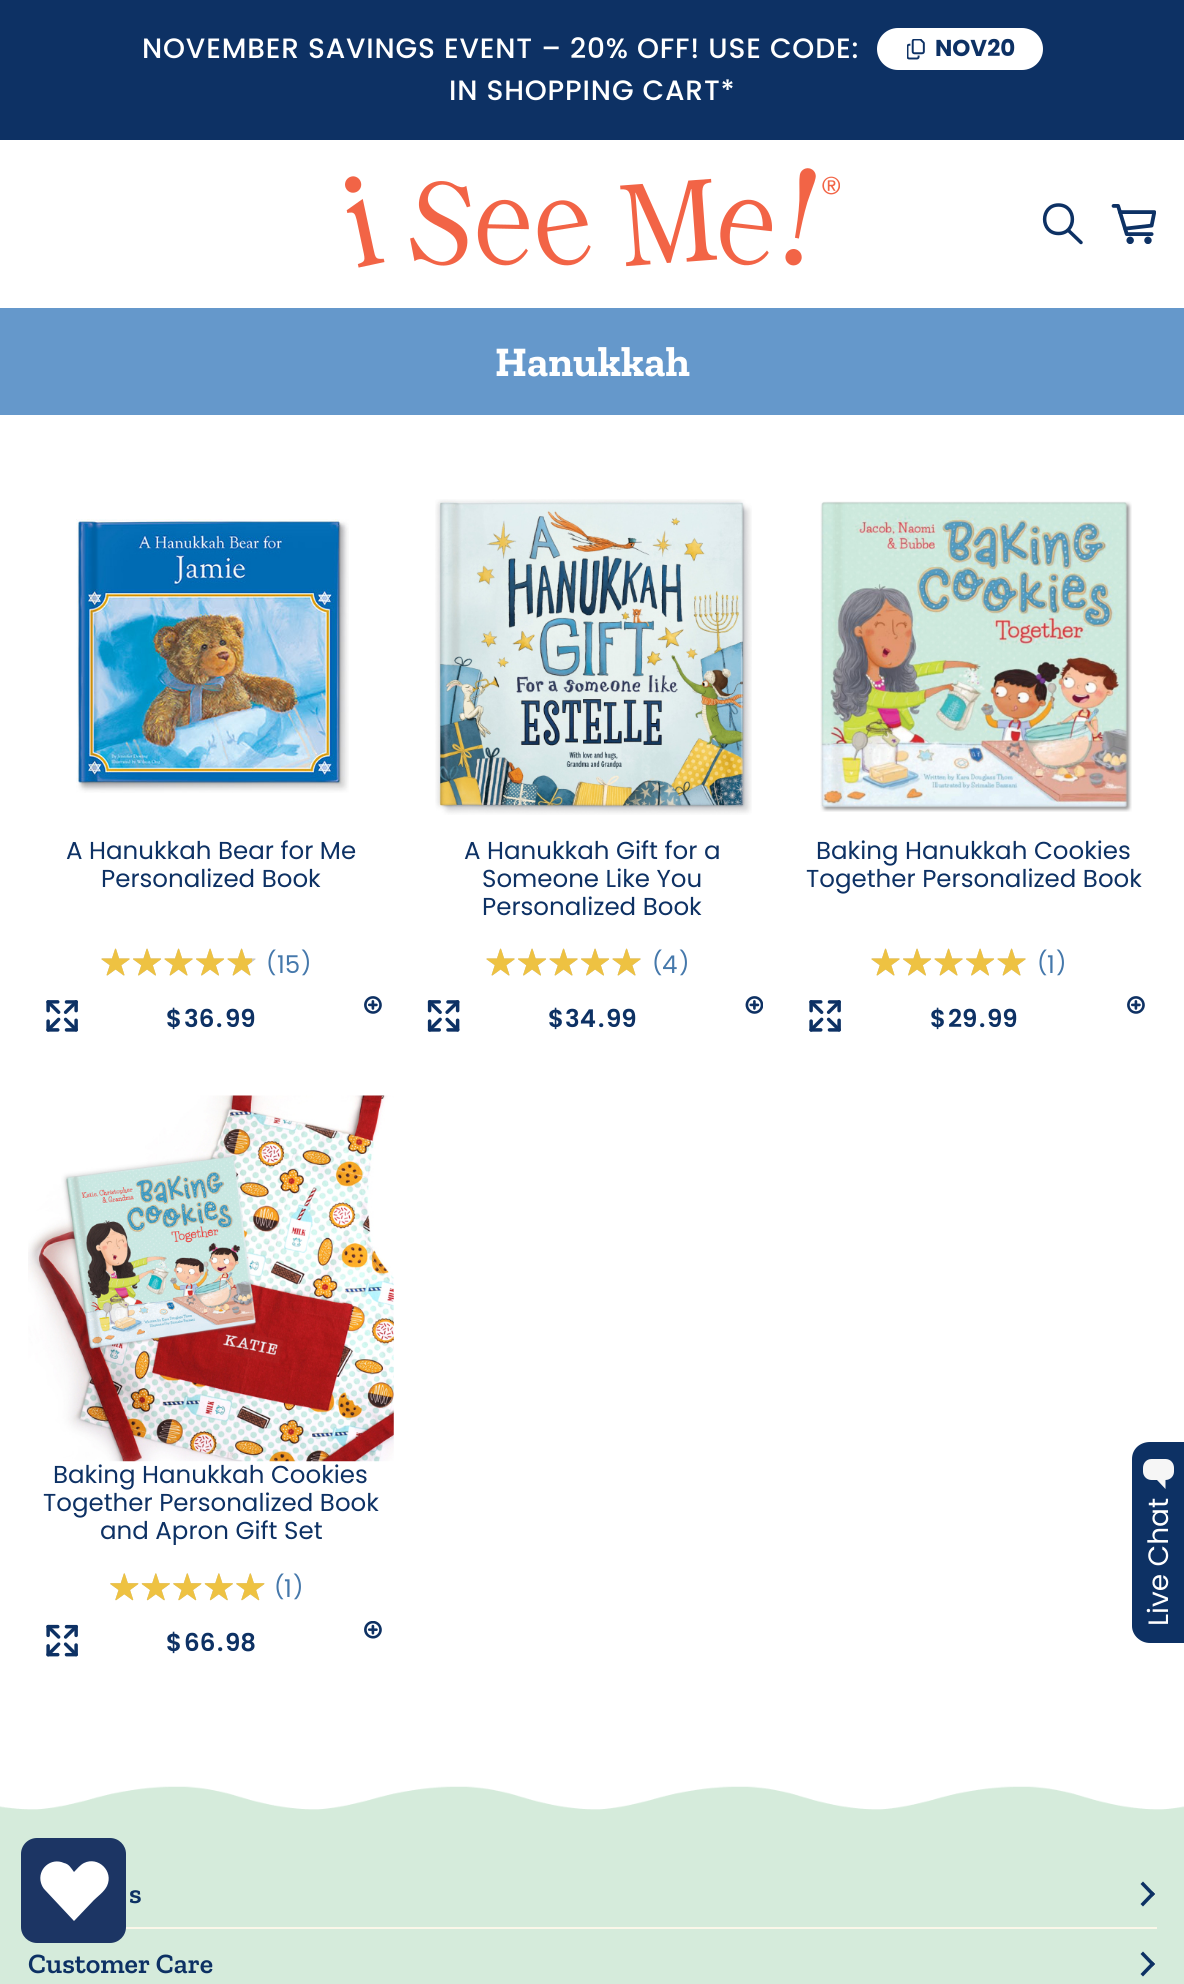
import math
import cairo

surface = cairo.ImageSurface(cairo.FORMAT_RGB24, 1184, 1984)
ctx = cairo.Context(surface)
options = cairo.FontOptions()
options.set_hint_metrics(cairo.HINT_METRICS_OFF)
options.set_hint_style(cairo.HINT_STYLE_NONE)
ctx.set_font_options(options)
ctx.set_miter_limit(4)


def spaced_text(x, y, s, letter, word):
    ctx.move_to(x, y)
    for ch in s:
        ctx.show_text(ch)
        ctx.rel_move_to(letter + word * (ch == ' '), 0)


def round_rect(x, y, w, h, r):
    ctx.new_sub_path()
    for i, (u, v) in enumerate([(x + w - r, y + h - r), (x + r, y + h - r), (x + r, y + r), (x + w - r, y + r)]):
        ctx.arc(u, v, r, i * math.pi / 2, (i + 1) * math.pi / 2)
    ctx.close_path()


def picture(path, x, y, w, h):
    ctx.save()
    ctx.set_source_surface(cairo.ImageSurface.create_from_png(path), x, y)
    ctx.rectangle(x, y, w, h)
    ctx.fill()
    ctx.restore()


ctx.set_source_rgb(1, 1, 1)
ctx.paint()
ctx.set_source_rgb(0.051, 0.192, 0.392)
ctx.rectangle(0, 0, 1184, 140)
ctx.fill()
ctx.select_font_face("Poppins Medium")
ctx.set_font_size(28)
ctx.set_source_rgb(1, 1, 1)
spaced_text(142, 58, "NOVEMBER SAVINGS EVENT – 20% OFF! USE CODE:", 0.85, 0)
round_rect(877, 28, 166, 42, 21)
ctx.fill()
picture("img1.png", 907, 39, 18, 21)
ctx.select_font_face("Poppins", cairo.FONT_SLANT_NORMAL, cairo.FONT_WEIGHT_BOLD)
ctx.set_font_size(23)
ctx.set_source_rgb(0.051, 0.192, 0.392)
ctx.move_to(935, 56)
ctx.show_text("NOV20")
ctx.select_font_face("Poppins Medium")
ctx.set_font_size(28)
ctx.set_source_rgb(1, 1, 1)
spaced_text(449, 100, "IN SHOPPING CART*", 0.85, 0)
picture("img2.png", 345, 168, 495, 100)
ctx.new_path()
ctx.move_to(1058.5, 233.5)
ctx.curve_to(1077, 233.5, 1077, 205, 1058.5, 205)
ctx.curve_to(1040, 205, 1040, 233.5, 1058.5, 233.5)
ctx.close_path()
ctx.set_source_rgb(0.051, 0.192, 0.392)
ctx.set_line_width(3.5)
ctx.stroke()
ctx.new_path()
ctx.move_to(1068.5, 230.5)
ctx.line_to(1081, 242.5)
ctx.set_line_cap(cairo.LINE_CAP_ROUND)
ctx.stroke()
picture("img3.png", 1111, 204, 45, 40)
ctx.set_source_rgb(0.396, 0.596, 0.796)
ctx.rectangle(0, 308, 1184, 107)
ctx.fill()
ctx.select_font_face("Zilla Slab", cairo.FONT_SLANT_NORMAL, cairo.FONT_WEIGHT_BOLD)
ctx.set_font_size(42)
ctx.set_source_rgb(1, 1, 1)
ctx.move_to(495, 376)
ctx.show_text("Hanukkah")
picture("img4.png", 76, 519, 273, 274)
ctx.select_font_face("Poppins")
ctx.set_font_size(24.5)
ctx.set_source_rgb(0.051, 0.192, 0.392)
ctx.move_to(66, 859)
ctx.show_text("A Hanukkah Bear for Me")
ctx.move_to(101, 887)
ctx.show_text("Personalized Book")
picture("img5.png", 101, 948, 155, 28)
picture("img6.png", 101, 948, 151, 28)
ctx.set_font_size(23)
ctx.set_source_rgb(0.271, 0.471, 0.671)
ctx.move_to(266, 971)
ctx.show_text("(")
ctx.set_font_size(24.5)
ctx.move_to(277, 973)
ctx.show_text("15")
ctx.set_font_size(23)
ctx.move_to(301, 971)
ctx.show_text(")")
picture("img7.png", 46, 1000, 32, 32)
picture("img8.png", 364, 996, 18, 18)
ctx.select_font_face("Poppins SemiBold")
ctx.set_font_size(24.5)
ctx.set_source_rgb(0.051, 0.192, 0.392)
ctx.move_to(166, 1027)
ctx.show_text("$")
ctx.move_to(184, 1027)
ctx.show_text("36")
ctx.move_to(216, 1027)
ctx.show_text(".")
ctx.move_to(225, 1027)
ctx.show_text("99")
picture("img9.png", 435, 499, 317, 316)
ctx.select_font_face("Poppins")
ctx.move_to(464, 859)
ctx.show_text("A Hanukkah Gift for a")
ctx.move_to(482, 887)
ctx.show_text("Someone Like You")
ctx.move_to(482, 915)
ctx.show_text("Personalized Book")
picture("img5.png", 486, 948, 155, 28)
picture("img10.png", 486, 948, 155, 28)
ctx.set_font_size(23)
ctx.set_source_rgb(0.271, 0.471, 0.671)
ctx.move_to(652, 971)
ctx.show_text("(")
ctx.set_font_size(24.5)
ctx.move_to(662, 973)
ctx.show_text("4")
ctx.set_font_size(23)
ctx.move_to(679, 971)
ctx.show_text(")")
picture("img11.png", 427, 1000, 33, 32)
picture("img12.png", 745, 996, 18, 18)
ctx.select_font_face("Poppins SemiBold")
ctx.set_font_size(24.5)
ctx.set_source_rgb(0.051, 0.192, 0.392)
ctx.move_to(548, 1027)
ctx.show_text("$")
ctx.move_to(565, 1027)
ctx.show_text("34")
ctx.move_to(598, 1027)
ctx.show_text(".")
ctx.move_to(606, 1027)
ctx.show_text("99")
picture("img13.png", 820, 501, 312, 311)
ctx.select_font_face("Poppins")
ctx.move_to(816, 859)
ctx.show_text("Baking Hanukkah Cookies")
ctx.move_to(806, 887)
ctx.show_text("Together Personalized Book")
picture("img5.png", 871, 948, 155, 28)
picture("img10.png", 871, 948, 155, 28)
ctx.set_font_size(23)
ctx.set_source_rgb(0.271, 0.471, 0.671)
ctx.move_to(1037, 971)
ctx.show_text("(")
ctx.set_font_size(24.5)
ctx.move_to(1047, 973)
ctx.show_text("1")
ctx.set_font_size(23)
ctx.move_to(1056, 971)
ctx.show_text(")")
picture("img7.png", 809, 1000, 32, 32)
picture("img8.png", 1127, 996, 18, 18)
ctx.select_font_face("Poppins SemiBold")
ctx.set_font_size(24.5)
ctx.set_source_rgb(0.051, 0.192, 0.392)
ctx.move_to(930, 1027)
ctx.show_text("$")
ctx.move_to(948, 1027)
ctx.show_text("29")
ctx.move_to(979, 1027)
ctx.show_text(".")
ctx.move_to(987, 1027)
ctx.show_text("99")
picture("img14.png", 28, 1095, 366, 367)
ctx.select_font_face("Poppins")
ctx.move_to(53, 1483)
ctx.show_text("Baking Hanukkah Cookies")
ctx.move_to(43, 1511)
ctx.show_text("Together Personalized Book")
ctx.save()
ctx.rectangle(28, 1461, 366, 84)
ctx.clip()
ctx.move_to(100, 1539)
ctx.show_text("and Apron Gift Set")
ctx.restore()
picture("img15.png", 110, 1573, 155, 28)
picture("img16.png", 110, 1573, 155, 28)
ctx.set_font_size(23)
ctx.set_source_rgb(0.271, 0.471, 0.671)
ctx.move_to(274, 1595)
ctx.show_text("(")
ctx.set_font_size(24.5)
ctx.move_to(284, 1597)
ctx.show_text("1")
ctx.set_font_size(23)
ctx.move_to(293, 1595)
ctx.show_text(")")
picture("img17.png", 46, 1624, 32, 33)
picture("img18.png", 364, 1621, 18, 18)
ctx.select_font_face("Poppins SemiBold")
ctx.set_font_size(24.5)
ctx.set_source_rgb(0.051, 0.192, 0.392)
ctx.move_to(166, 1651)
ctx.show_text("$")
ctx.move_to(184, 1651)
ctx.show_text("66")
ctx.move_to(217, 1651)
ctx.show_text(".")
ctx.move_to(225, 1651)
ctx.show_text("98")
picture("img19.png", 0, 1786, 1184, 198)
ctx.set_source_rgb(0.984, 0.965, 0.914)
ctx.rectangle(125, 1927, 1032, 2)
ctx.fill()
ctx.select_font_face("Zilla Slab SemiBold")
ctx.set_font_size(28)
ctx.set_source_rgb(0.051, 0.192, 0.392)
ctx.move_to(129, 1903)
ctx.show_text("s")
ctx.new_path()
ctx.move_to(1140.5, 1884)
ctx.line_to(1143, 1881.5)
ctx.line_to(1155, 1894)
ctx.line_to(1152.5, 1896.5)
ctx.close_path()
ctx.fill()
ctx.new_path()
ctx.move_to(1140.5, 1904)
ctx.line_to(1152.5, 1891.5)
ctx.line_to(1155, 1894)
ctx.line_to(1143, 1906.5)
ctx.close_path()
ctx.fill()
ctx.move_to(28, 1973)
ctx.show_text("Customer Care")
ctx.new_path()
ctx.move_to(1140.5, 1954)
ctx.line_to(1143, 1951.5)
ctx.line_to(1155, 1964)
ctx.line_to(1152.5, 1966.5)
ctx.close_path()
ctx.fill()
ctx.new_path()
ctx.move_to(1140.5, 1974)
ctx.line_to(1152.5, 1961.5)
ctx.line_to(1155, 1964)
ctx.line_to(1143, 1976.5)
ctx.close_path()
ctx.fill()
ctx.new_path()
ctx.move_to(1132, 1626)
ctx.line_to(1132, 1459)
ctx.curve_to(1132, 1449, 1140, 1442, 1150, 1442)
ctx.line_to(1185, 1442)
ctx.line_to(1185, 1643)
ctx.line_to(1150, 1643)
ctx.curve_to(1140, 1643, 1132, 1635, 1132, 1626)
ctx.close_path()
ctx.fill()
ctx.set_source_rgb(0.961, 0.961, 0.961)
ctx.new_path()
ctx.move_to(1143, 1471.5)
ctx.line_to(1143, 1468)
ctx.curve_to(1143, 1463, 1146.5, 1459, 1151.5, 1459)
ctx.line_to(1165.5, 1459)
ctx.curve_to(1170.5, 1459, 1174, 1463, 1174, 1468)
ctx.line_to(1174, 1471.5)
ctx.curve_to(1174, 1476, 1170.5, 1480, 1165.5, 1480)
ctx.line_to(1151.5, 1480)
ctx.curve_to(1146.5, 1480, 1143, 1476, 1143, 1471.5)
ctx.close_path()
ctx.move_to(1165.5, 1480)
ctx.line_to(1165.5, 1489)
ctx.line_to(1157, 1480)
ctx.close_path()
ctx.fill()
ctx.select_font_face("Poppins")
ctx.set_source_rgb(1, 1, 1)
ctx.save()
ctx.translate(1168, 1626)
ctx.rotate(-90 * math.pi / 180)
ctx.move_to(0, 0)
ctx.show_text("Live Chat")
ctx.restore()
ctx.set_source_rgb(0.11, 0.208, 0.392)
round_rect(21, 1838, 105, 105, 16)
ctx.fill()
ctx.set_source_rgb(1, 1, 1)
ctx.new_path()
ctx.move_to(41, 1883)
ctx.curve_to(42, 1886, 43, 1888, 45, 1890)
ctx.line_to(74, 1921)
ctx.line_to(94, 1900)
ctx.curve_to(98, 1896, 104, 1892, 107, 1886)
ctx.curve_to(114, 1871, 98, 1856, 84, 1863)
ctx.curve_to(80, 1865, 77, 1869, 74, 1872)
ctx.curve_to(71, 1868, 69, 1864, 64, 1863)
ctx.curve_to(51, 1857, 37, 1869, 41, 1883)
ctx.close_path()
ctx.fill()
surface.write_to_png("page.png")
